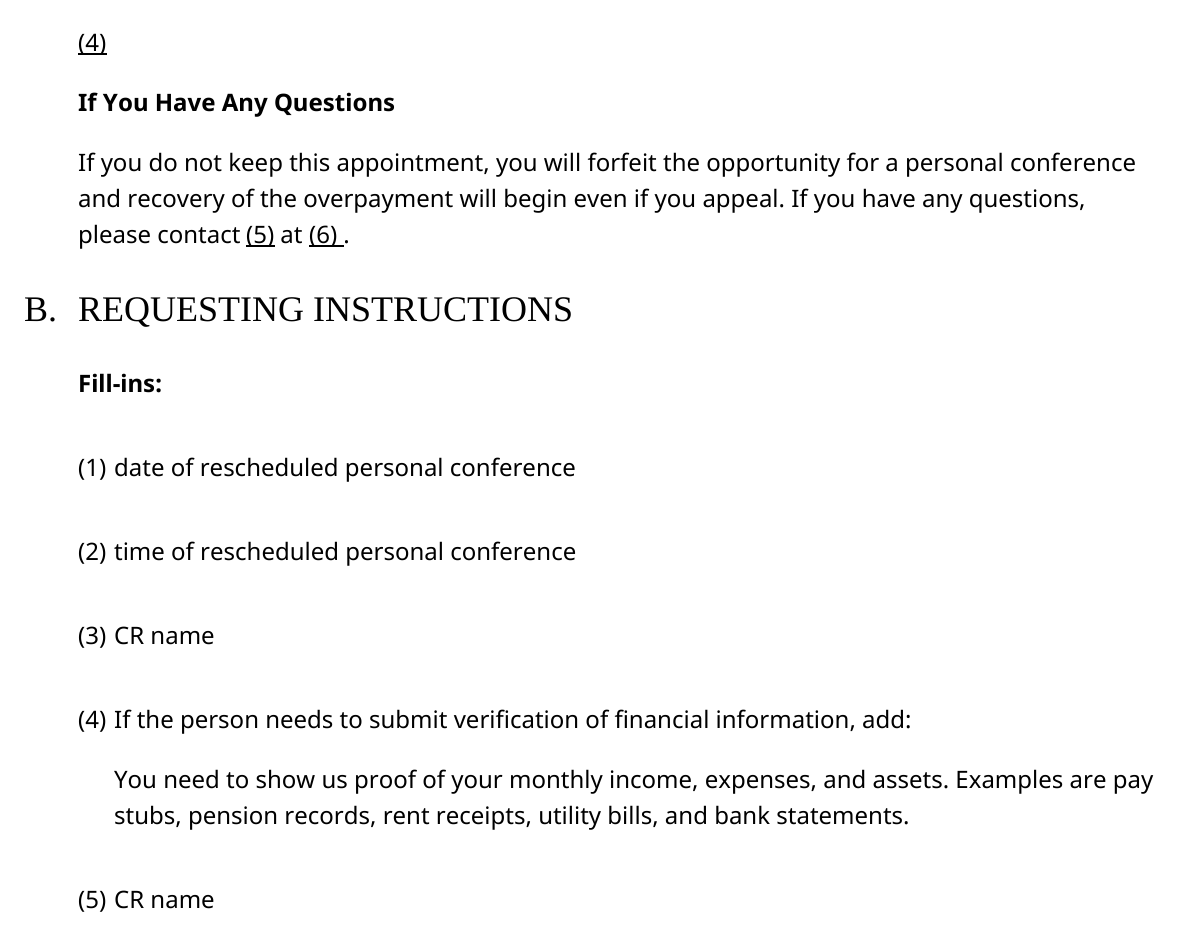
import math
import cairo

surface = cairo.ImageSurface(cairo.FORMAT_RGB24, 1184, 929)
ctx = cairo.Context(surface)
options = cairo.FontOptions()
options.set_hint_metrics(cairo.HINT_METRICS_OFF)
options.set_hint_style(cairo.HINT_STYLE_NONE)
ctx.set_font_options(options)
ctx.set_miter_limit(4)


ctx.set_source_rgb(1, 1, 1)
ctx.paint()
ctx.set_source_rgb(0, 0, 0)
ctx.rectangle(78, 53, 29, 2)
ctx.fill()
ctx.select_font_face("Noto Sans")
ctx.set_font_size(24)
ctx.move_to(78, 51)
ctx.show_text("(4)")
ctx.select_font_face("Noto Sans", cairo.FONT_SLANT_NORMAL, cairo.FONT_WEIGHT_BOLD)
ctx.move_to(78, 111)
ctx.show_text("If You Have Any Questions")
ctx.select_font_face("Noto Sans")
ctx.move_to(78, 171)
ctx.show_text("If you do not keep this appointment, you will forfeit the opportunity for a personal conference")
ctx.move_to(78, 207)
ctx.show_text("and recovery of the overpayment will begin even if you appeal. If you have any questions,")
ctx.move_to(78, 243)
ctx.show_text("please contact")
ctx.rectangle(246, 245, 29, 2)
ctx.fill()
ctx.move_to(246, 243)
ctx.show_text("(5) at")
ctx.rectangle(309, 245, 35, 2)
ctx.fill()
ctx.move_to(309, 243)
ctx.show_text("(6) .")
ctx.select_font_face("Liberation Serif")
ctx.set_font_size(36)
ctx.move_to(24, 321)
ctx.show_text("B.")
ctx.move_to(78, 321)
ctx.show_text("REQUESTING INSTRUCTIONS")
ctx.select_font_face("Noto Sans", cairo.FONT_SLANT_NORMAL, cairo.FONT_WEIGHT_BOLD)
ctx.set_font_size(24)
ctx.move_to(78, 392)
ctx.show_text("Fill-ins:")
ctx.select_font_face("Noto Sans")
ctx.move_to(78, 476)
ctx.show_text("(1)")
ctx.move_to(114, 476)
ctx.show_text("date of rescheduled personal conference")
ctx.move_to(78, 560)
ctx.show_text("(2)")
ctx.move_to(114, 560)
ctx.show_text("time of rescheduled personal conference")
ctx.move_to(78, 644)
ctx.show_text("(3)")
ctx.move_to(114, 644)
ctx.show_text("CR name")
ctx.move_to(78, 728)
ctx.show_text("(4)")
ctx.move_to(114, 728)
ctx.show_text("If the person needs to submit verification of financial information, add:")
ctx.move_to(114, 788)
ctx.show_text("You need to show us proof of your monthly income, expenses, and assets. Examples are pay")
ctx.move_to(114, 824)
ctx.show_text("stubs, pension records, rent receipts, utility bills, and bank statements.")
ctx.move_to(78, 908)
ctx.show_text("(5)")
ctx.move_to(114, 908)
ctx.show_text("CR name")
surface.write_to_png("page.png")
